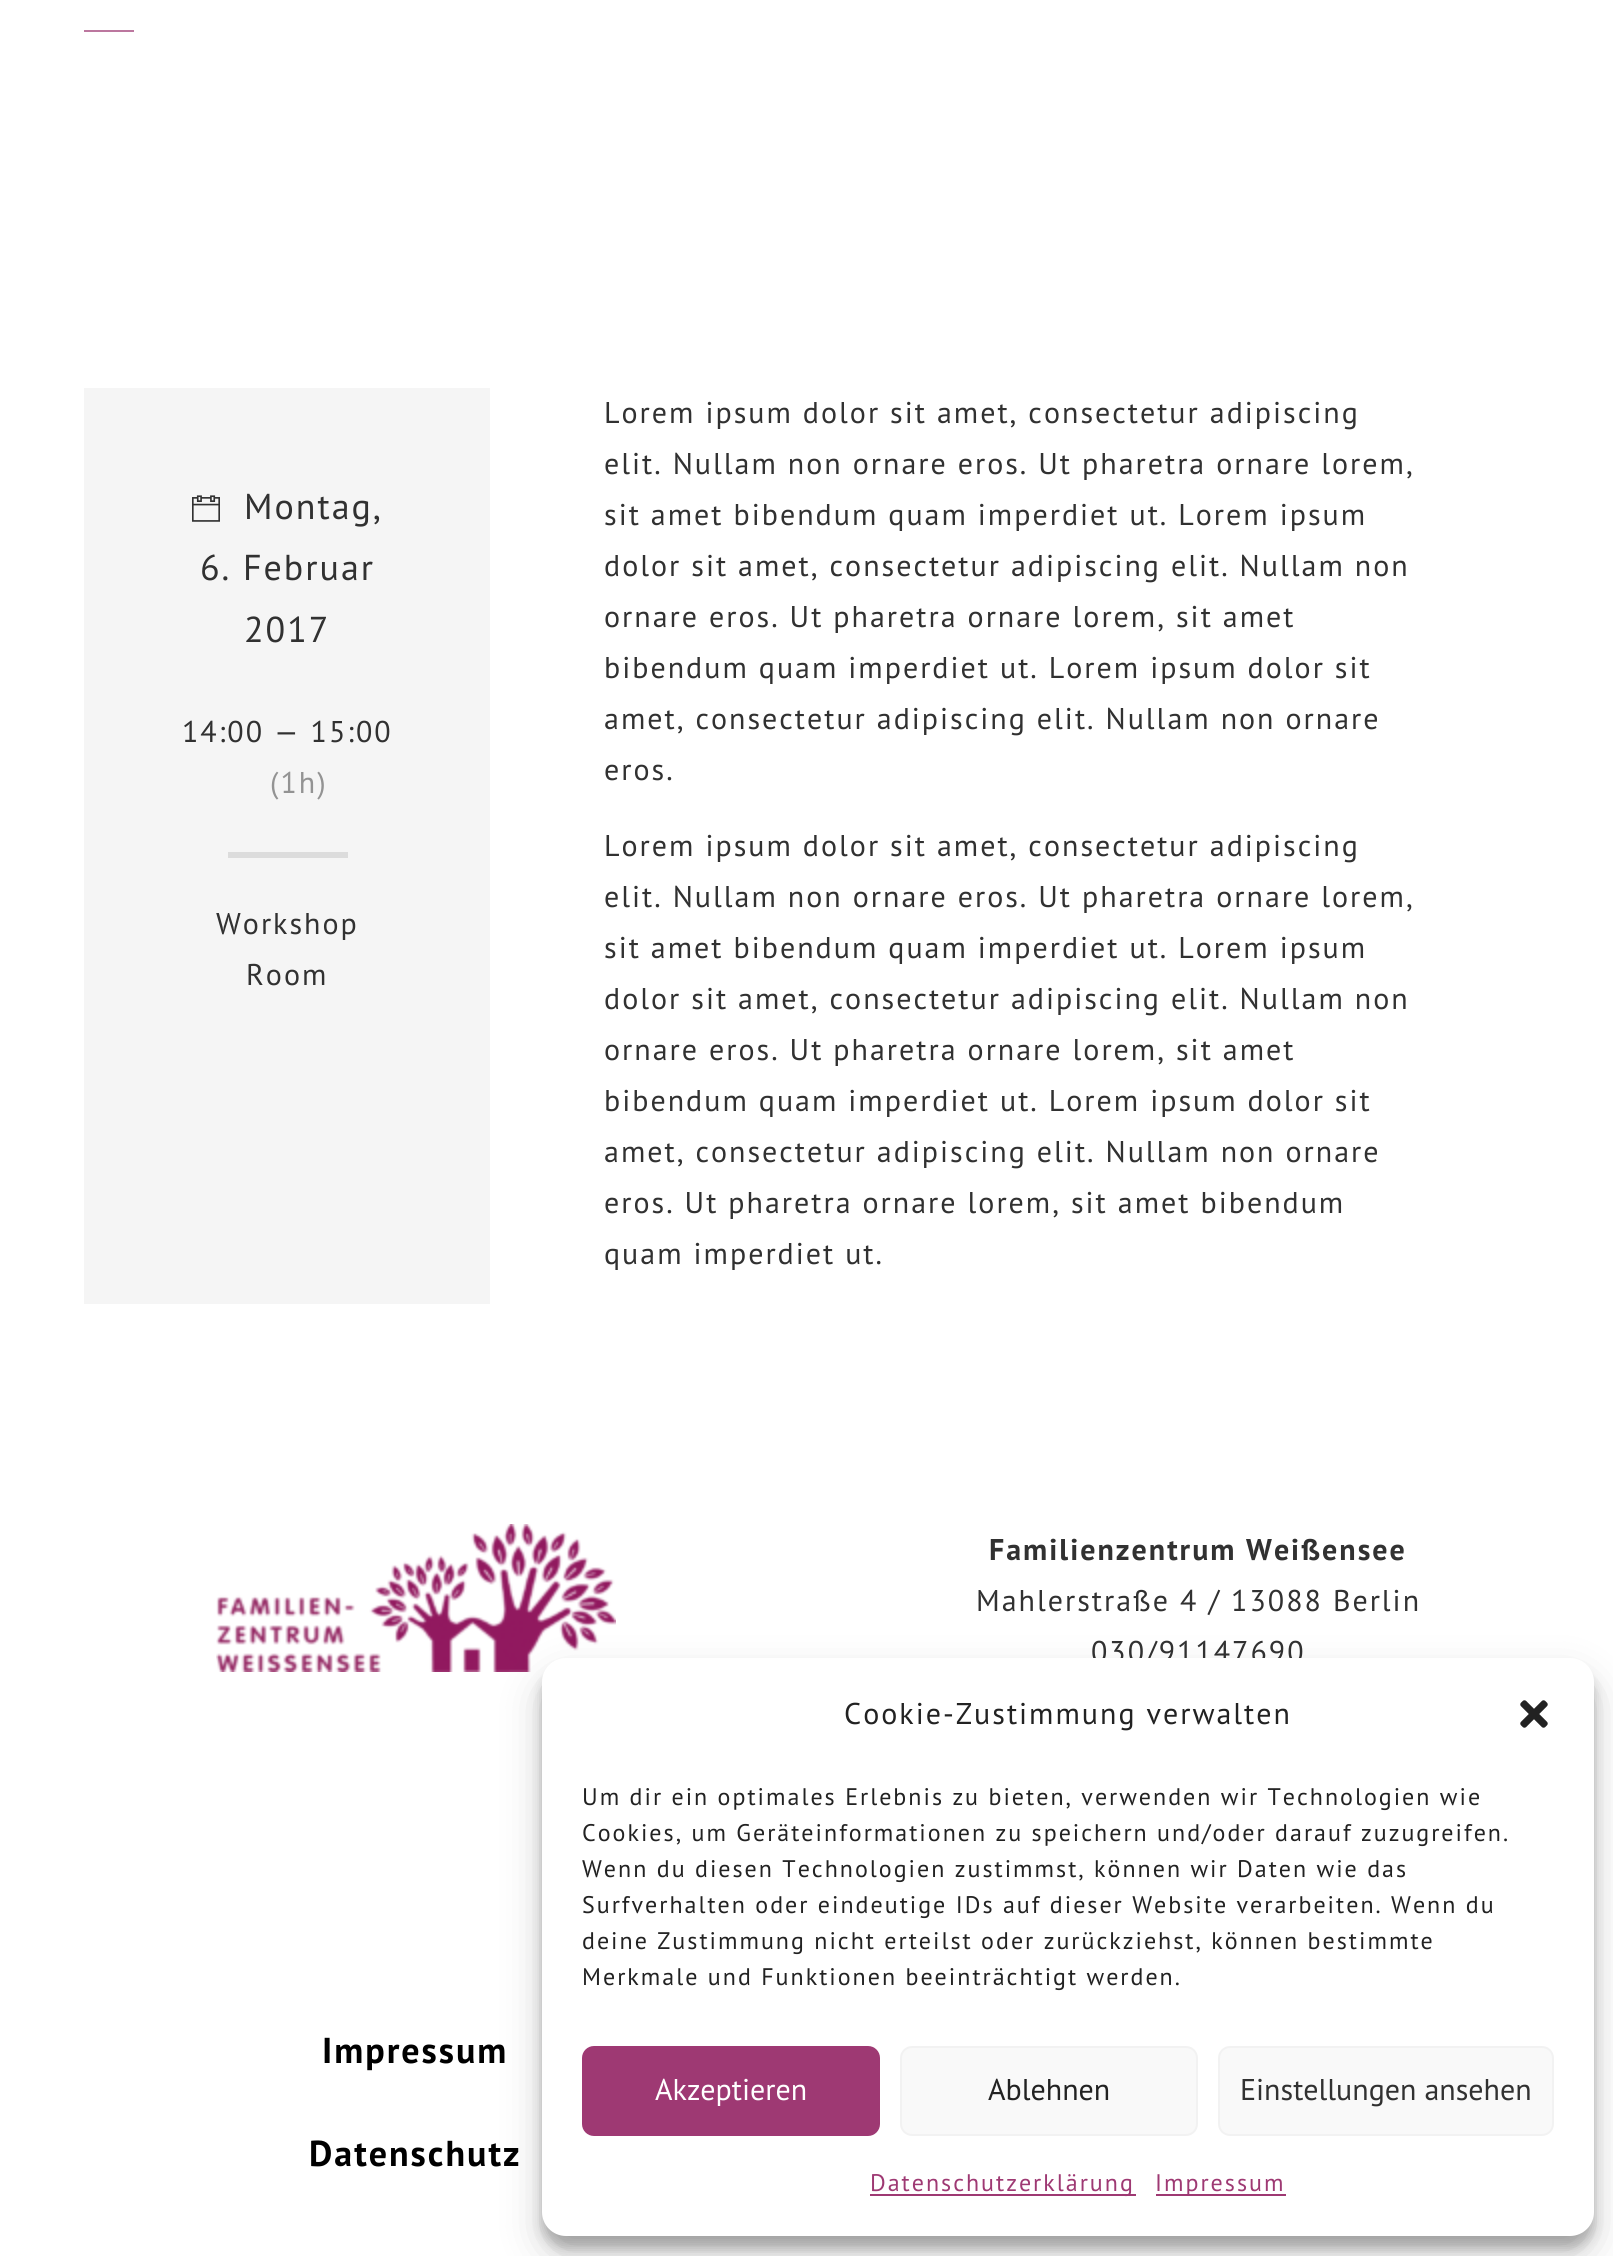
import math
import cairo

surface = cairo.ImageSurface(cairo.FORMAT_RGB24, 1613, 2256)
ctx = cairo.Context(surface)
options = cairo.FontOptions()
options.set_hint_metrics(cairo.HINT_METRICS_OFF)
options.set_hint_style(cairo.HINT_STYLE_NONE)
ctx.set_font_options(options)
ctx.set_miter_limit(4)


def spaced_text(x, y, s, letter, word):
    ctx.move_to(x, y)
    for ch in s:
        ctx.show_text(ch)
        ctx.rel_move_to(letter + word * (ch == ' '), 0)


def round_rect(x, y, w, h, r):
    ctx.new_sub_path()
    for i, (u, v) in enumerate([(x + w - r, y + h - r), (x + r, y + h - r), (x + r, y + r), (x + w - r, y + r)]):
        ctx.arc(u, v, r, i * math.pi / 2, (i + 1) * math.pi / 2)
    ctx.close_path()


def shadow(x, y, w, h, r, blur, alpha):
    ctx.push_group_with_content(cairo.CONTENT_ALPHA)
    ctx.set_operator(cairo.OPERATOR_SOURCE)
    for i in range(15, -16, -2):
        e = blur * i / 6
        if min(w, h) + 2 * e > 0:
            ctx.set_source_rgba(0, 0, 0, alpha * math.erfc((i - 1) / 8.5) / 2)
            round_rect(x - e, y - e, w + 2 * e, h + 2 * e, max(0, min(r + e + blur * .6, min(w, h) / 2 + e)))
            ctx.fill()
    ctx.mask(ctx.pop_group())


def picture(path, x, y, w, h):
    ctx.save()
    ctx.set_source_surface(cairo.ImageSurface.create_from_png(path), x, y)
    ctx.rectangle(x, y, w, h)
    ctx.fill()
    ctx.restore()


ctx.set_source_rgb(1, 1, 1)
ctx.paint()
ctx.set_source_rgb(0.737, 0.467, 0.624)
ctx.rectangle(84, 30, 50, 2)
ctx.fill()
picture("img1.png", 192, 495, 28, 27)
ctx.set_source_rgba(0.192, 0.192, 0.192, 0.05)
ctx.rectangle(84, 388, 406, 916)
ctx.fill()
ctx.select_font_face("PT Sans")
ctx.set_font_size(36)
ctx.set_source_rgb(0.192, 0.192, 0.192)
spaced_text(244, 519, "Montag,", 2, 0)
spaced_text(200, 580, "6. Februar", 2, 0)
spaced_text(244, 642, "2017", 2, 0)
ctx.set_font_size(30)
spaced_text(182, 742, "14:00 — 15:00", 2, 0)
ctx.set_source_rgb(0.576, 0.576, 0.576)
spaced_text(270, 793, "(1h)", 2, 0)
ctx.set_source_rgb(0.863, 0.863, 0.863)
ctx.rectangle(228, 852, 120, 6)
ctx.fill()
ctx.set_source_rgb(0.192, 0.192, 0.192)
spaced_text(216, 934, "Workshop", 2, 0)
spaced_text(246, 985, "Room", 2, 0)
spaced_text(604, 423, "Lorem ipsum dolor sit amet, consectetur adipiscing", 2, 0)
spaced_text(604, 474, "elit. Nullam non ornare eros. Ut pharetra ornare lorem,", 2, 0)
spaced_text(604, 525, "sit amet bibendum quam imperdiet ut. Lorem ipsum", 2, 0)
spaced_text(604, 576, "dolor sit amet, consectetur adipiscing elit. Nullam non", 2, 0)
spaced_text(604, 627, "ornare eros. Ut pharetra ornare lorem, sit amet", 2, 0)
spaced_text(604, 678, "bibendum quam imperdiet ut. Lorem ipsum dolor sit", 2, 0)
spaced_text(604, 729, "amet, consectetur adipiscing elit. Nullam non ornare", 2, 0)
spaced_text(604, 780, "eros.", 2, 0)
spaced_text(604, 856, "Lorem ipsum dolor sit amet, consectetur adipiscing", 2, 0)
spaced_text(604, 907, "elit. Nullam non ornare eros. Ut pharetra ornare lorem,", 2, 0)
spaced_text(604, 958, "sit amet bibendum quam imperdiet ut. Lorem ipsum", 2, 0)
spaced_text(604, 1009, "dolor sit amet, consectetur adipiscing elit. Nullam non", 2, 0)
spaced_text(604, 1060, "ornare eros. Ut pharetra ornare lorem, sit amet", 2, 0)
spaced_text(604, 1111, "bibendum quam imperdiet ut. Lorem ipsum dolor sit", 2, 0)
spaced_text(604, 1162, "amet, consectetur adipiscing elit. Nullam non ornare", 2, 0)
spaced_text(604, 1213, "eros. Ut pharetra ornare lorem, sit amet bibendum", 2, 0)
spaced_text(604, 1264, "quam imperdiet ut.", 2, 0)
picture("img2.png", 216, 1524, 400, 148)
ctx.select_font_face("PT Sans", cairo.FONT_SLANT_NORMAL, cairo.FONT_WEIGHT_BOLD)
spaced_text(989, 1560, "Familienzentrum Weißensee", 2, 0)
ctx.select_font_face("PT Sans")
spaced_text(976, 1611, "Mahlerstraße 4 / 13088 Berlin", 2, 0)
spaced_text(1091, 1662, "030/91147690", 2, 0)
ctx.select_font_face("PT Sans", cairo.FONT_SLANT_NORMAL, cairo.FONT_WEIGHT_BOLD)
ctx.set_font_size(36)
ctx.set_source_rgb(0, 0, 0)
spaced_text(322, 2063, "Impressum", 2, 0)
spaced_text(309, 2166, "Datenschutz", 2, 0)
ctx.set_source_rgb(0, 0, 0)
shadow(542, 1670, 1052, 578, 24, 6, 0.23)
shadow(542, 1678, 1052, 578, 24, 20, 0.19)
ctx.set_source_rgb(1, 1, 1)
round_rect(542, 1658, 1052, 578, 24)
ctx.fill()
ctx.select_font_face("PT Sans")
ctx.set_font_size(30)
ctx.set_source_rgb(0.133, 0.133, 0.133)
spaced_text(844, 1724, "Cookie-Zustimmung verwalten", 2, 0)
picture("img3.png", 1520, 1700, 28, 28)
ctx.set_font_size(24)
spaced_text(582, 1805, "Um dir ein optimales Erlebnis zu bieten, verwenden wir Technologien wie", 2, 0)
spaced_text(582, 1841, "Cookies, um Geräteinformationen zu speichern und/oder darauf zuzugreifen.", 2, 0)
spaced_text(582, 1877, "Wenn du diesen Technologien zustimmst, können wir Daten wie das", 2, 0)
spaced_text(582, 1913, "Surfverhalten oder eindeutige IDs auf dieser Website verarbeiten. Wenn du", 2, 0)
spaced_text(582, 1949, "deine Zustimmung nicht erteilst oder zurückziehst, können bestimmte", 2, 0)
spaced_text(582, 1985, "Merkmale und Funktionen beeinträchtigt werden.", 2, 0)
ctx.set_source_rgb(0.62, 0.224, 0.451)
round_rect(583, 2047, 296, 88, 11)
ctx.fill_preserve()
ctx.stroke()
ctx.set_font_size(30)
ctx.set_source_rgb(1, 1, 1)
ctx.move_to(655, 2100)
ctx.show_text("Akzeptieren")
ctx.set_source_rgb(0.976, 0.976, 0.976)
round_rect(901, 2047, 296, 88, 11)
ctx.fill_preserve()
ctx.set_source_rgb(0.949, 0.949, 0.949)
ctx.stroke()
ctx.set_source_rgb(0.133, 0.133, 0.133)
ctx.move_to(988, 2100)
ctx.show_text("Ablehnen")
ctx.set_source_rgb(0.976, 0.976, 0.976)
round_rect(1219, 2047, 334, 88, 11)
ctx.fill_preserve()
ctx.set_source_rgb(0.949, 0.949, 0.949)
ctx.stroke()
ctx.set_source_rgb(0.192, 0.192, 0.192)
ctx.move_to(1240, 2100)
ctx.show_text("Einstellungen ansehen")
ctx.set_source_rgb(0.62, 0.224, 0.451)
ctx.rectangle(870, 2194, 266, 2)
ctx.fill()
ctx.set_font_size(24)
spaced_text(870, 2191, "Datenschutzerklärung", 2, 0)
ctx.rectangle(1156, 2194, 130, 2)
ctx.fill()
spaced_text(1155, 2191, "Impressum", 2, 0)
surface.write_to_png("page.png")
